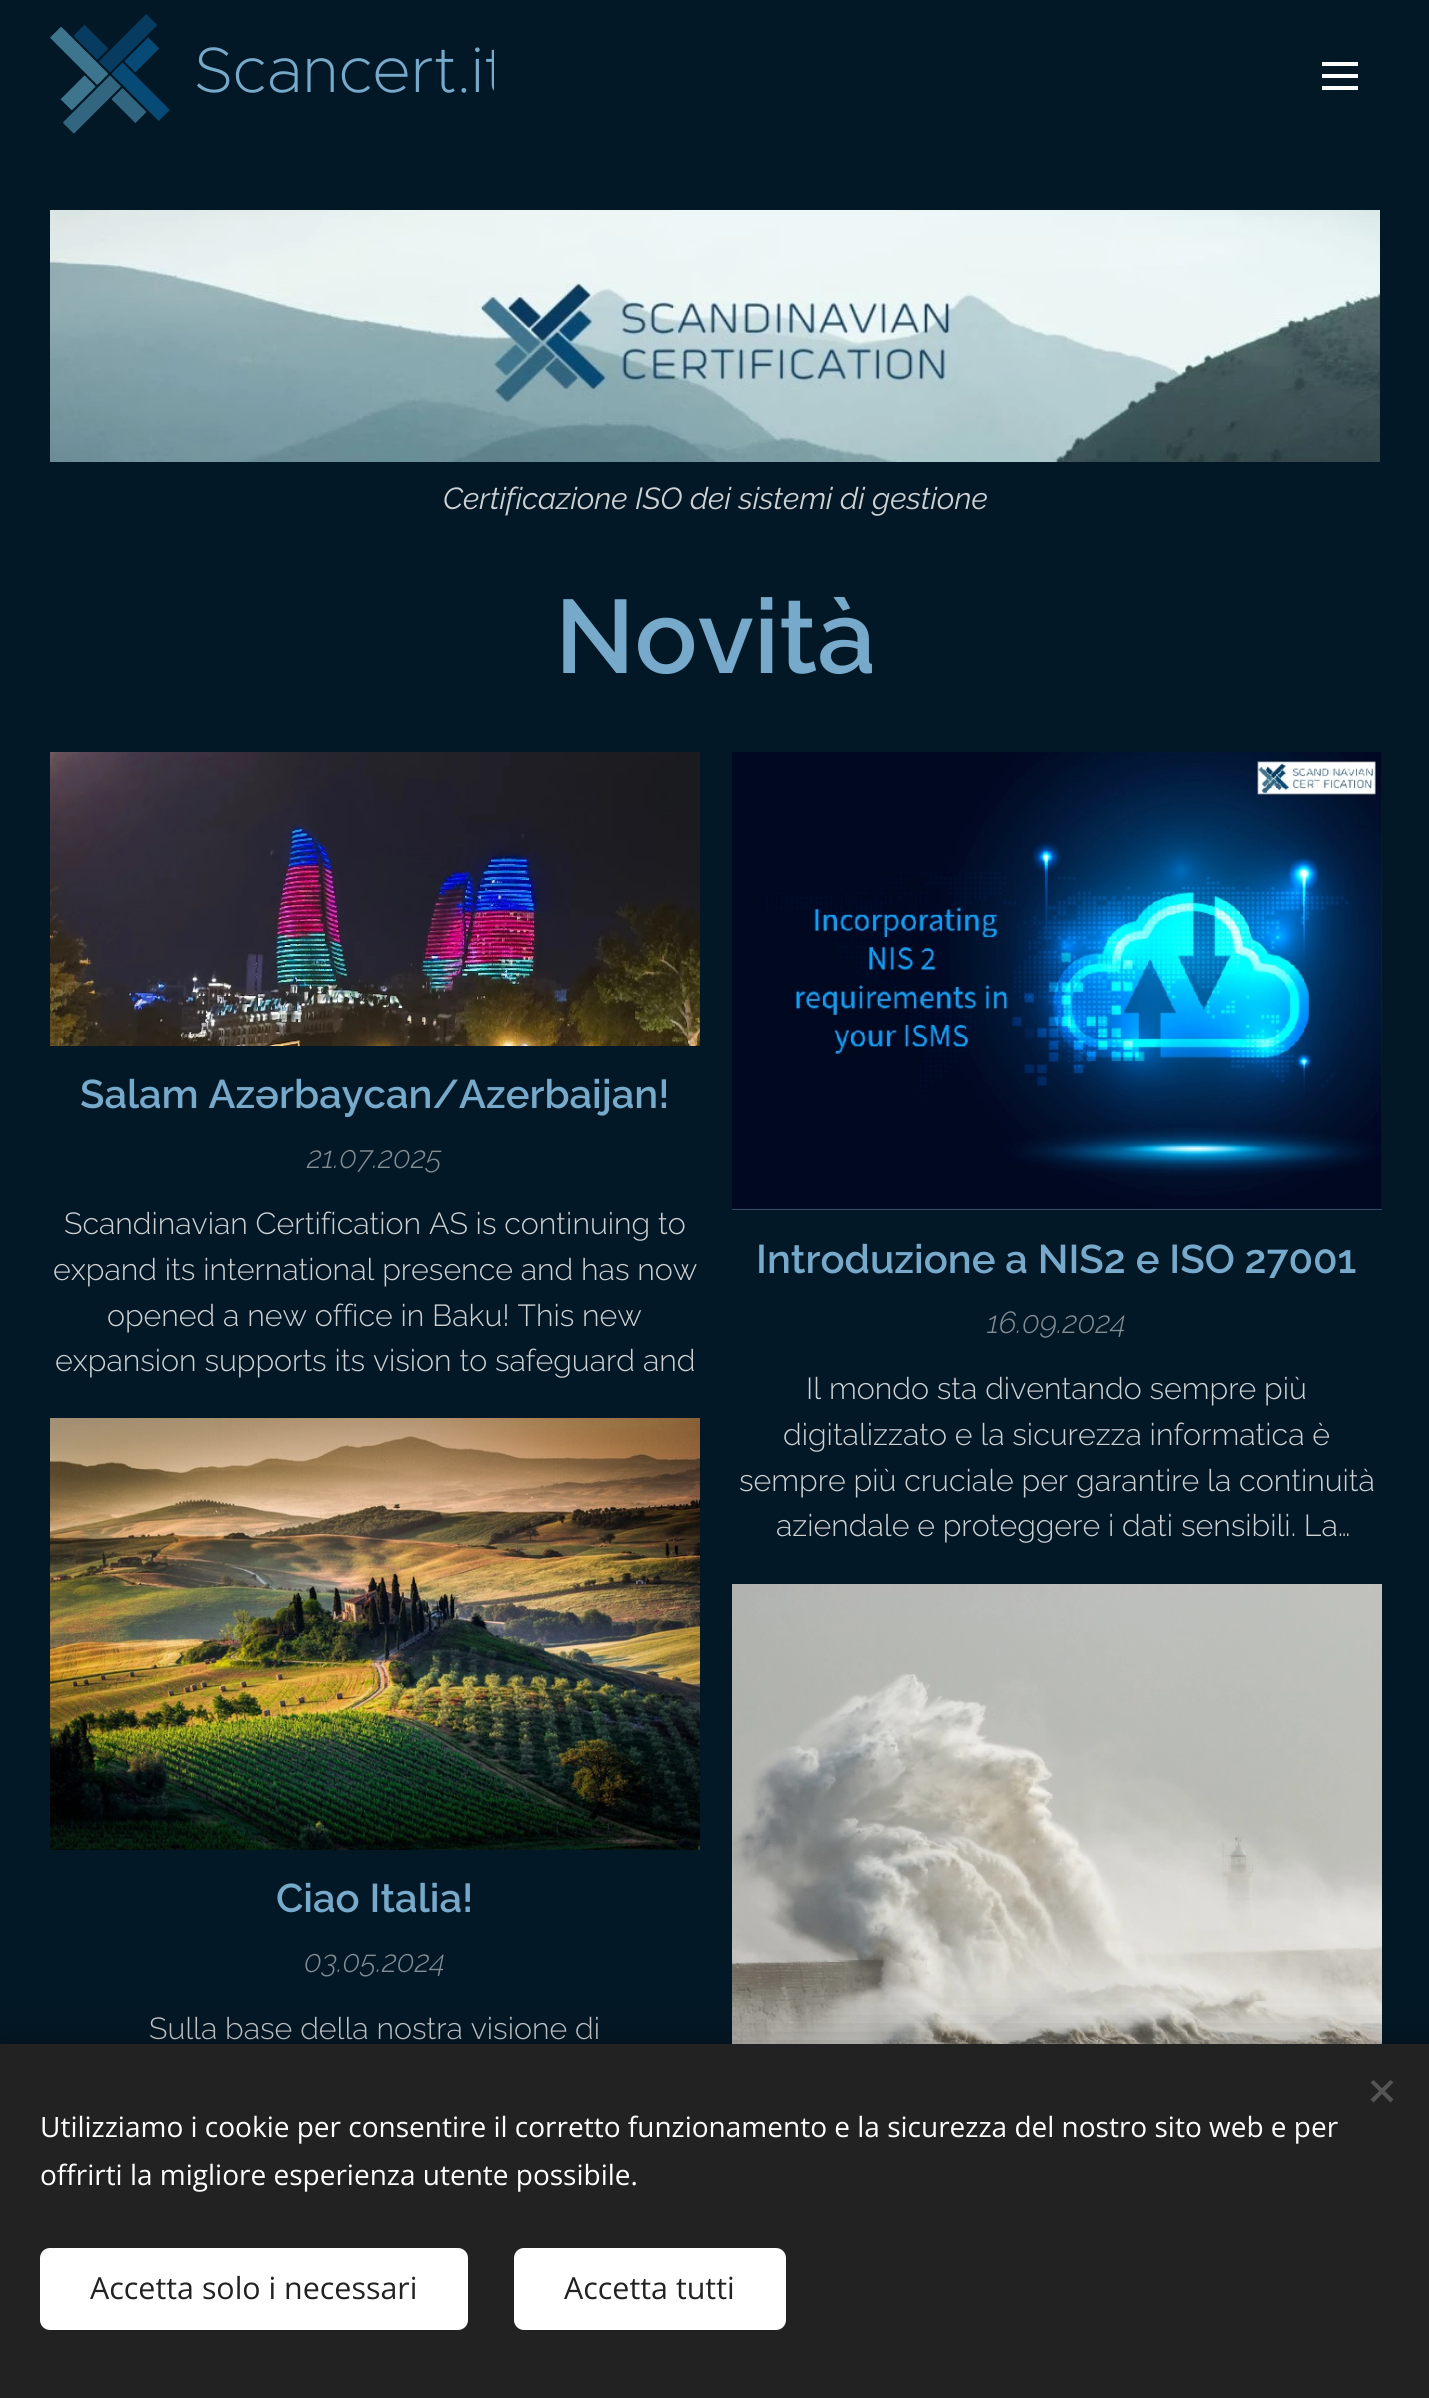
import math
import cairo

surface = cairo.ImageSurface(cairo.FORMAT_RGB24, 1429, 2398)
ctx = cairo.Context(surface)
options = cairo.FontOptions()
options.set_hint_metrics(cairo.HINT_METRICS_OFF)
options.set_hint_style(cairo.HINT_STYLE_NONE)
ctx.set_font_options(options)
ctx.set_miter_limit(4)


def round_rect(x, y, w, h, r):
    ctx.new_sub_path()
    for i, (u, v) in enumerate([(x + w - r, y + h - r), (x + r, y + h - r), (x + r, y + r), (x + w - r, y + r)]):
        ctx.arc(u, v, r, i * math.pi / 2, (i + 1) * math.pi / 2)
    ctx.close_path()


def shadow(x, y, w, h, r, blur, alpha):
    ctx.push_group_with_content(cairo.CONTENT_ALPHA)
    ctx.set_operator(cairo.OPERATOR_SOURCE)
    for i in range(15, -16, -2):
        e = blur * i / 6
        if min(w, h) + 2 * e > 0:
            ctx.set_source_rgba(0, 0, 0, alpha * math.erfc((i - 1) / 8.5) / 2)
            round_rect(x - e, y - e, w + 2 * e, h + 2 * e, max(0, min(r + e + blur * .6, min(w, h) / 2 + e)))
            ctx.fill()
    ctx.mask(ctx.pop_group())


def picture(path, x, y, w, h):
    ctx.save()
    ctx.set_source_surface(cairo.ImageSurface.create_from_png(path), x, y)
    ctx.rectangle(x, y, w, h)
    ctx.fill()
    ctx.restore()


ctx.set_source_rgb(0.012, 0.094, 0.149)
ctx.paint()
picture("img1.png", 50, 14, 120, 120)
ctx.save()
ctx.rectangle(180, 26, 314, 96)
ctx.clip()
ctx.select_font_face("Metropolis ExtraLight")
ctx.set_font_size(64)
ctx.set_source_rgb(0.467, 0.663, 0.792)
ctx.move_to(194, 92)
ctx.show_text("Scancert.it")
ctx.restore()
ctx.set_source_rgb(1, 1, 1)
ctx.rectangle(1322, 74, 36, 4)
ctx.fill()
ctx.rectangle(1322, 62, 36, 4)
ctx.fill()
ctx.rectangle(1322, 86, 36, 4)
ctx.fill()
picture("img2.png", 50, 210, 1330, 252)
ctx.select_font_face("Raleway", cairo.FONT_SLANT_ITALIC)
ctx.set_font_size(30.4)
ctx.set_source_rgb(0.804, 0.82, 0.831)
ctx.move_to(443, 509)
ctx.show_text("Certificazione ISO dei sistemi di gestione")
ctx.select_font_face("Raleway SemiBold")
ctx.set_font_size(104)
ctx.set_source_rgb(0.467, 0.663, 0.792)
ctx.move_to(555, 673)
ctx.show_text("Novità")
picture("img3.png", 50, 752, 650, 294)
ctx.set_font_size(40)
ctx.move_to(80, 1108)
ctx.show_text("Salam Azərbaycan/Azerbaijan!")
ctx.select_font_face("Raleway Light", cairo.FONT_SLANT_ITALIC)
ctx.set_font_size(30.4)
ctx.set_source_rgb(0.506, 0.549, 0.576)
ctx.move_to(307, 1168)
ctx.show_text("21.07.2025")
ctx.select_font_face("Raleway Light")
ctx.set_source_rgb(0.804, 0.82, 0.831)
ctx.move_to(64, 1234)
ctx.show_text("Scandinavian Certification AS is continuing to")
ctx.move_to(53, 1280)
ctx.show_text("expand its international presence and has now")
ctx.move_to(107, 1326)
ctx.show_text("opened a new office in Baku! This new")
ctx.move_to(55, 1371)
ctx.show_text("expansion supports its vision to safeguard and")
picture("img4.png", 732, 752, 650, 458)
ctx.select_font_face("Raleway SemiBold")
ctx.set_font_size(40)
ctx.set_source_rgb(0.467, 0.663, 0.792)
ctx.move_to(756, 1273)
ctx.show_text("Introduzione a NIS2 e ISO 27001")
ctx.select_font_face("Raleway Light", cairo.FONT_SLANT_ITALIC)
ctx.set_font_size(30.4)
ctx.set_source_rgb(0.506, 0.549, 0.576)
ctx.move_to(987, 1333)
ctx.show_text("16.09.2024")
ctx.select_font_face("Raleway Light")
ctx.set_source_rgb(0.804, 0.82, 0.831)
ctx.move_to(806, 1399)
ctx.show_text("Il mondo sta diventando sempre più")
ctx.move_to(783, 1445)
ctx.show_text("digitalizzato e la sicurezza informatica è")
ctx.move_to(739, 1491)
ctx.show_text("sempre più cruciale per garantire la continuità")
ctx.move_to(776, 1536)
ctx.show_text("aziendale e proteggere i dati sensibili. La…")
picture("img5.png", 50, 1418, 650, 432)
ctx.select_font_face("Raleway SemiBold")
ctx.set_font_size(40)
ctx.set_source_rgb(0.467, 0.663, 0.792)
ctx.move_to(276, 1912)
ctx.show_text("Ciao Italia!")
ctx.select_font_face("Raleway Light", cairo.FONT_SLANT_ITALIC)
ctx.set_font_size(30.4)
ctx.set_source_rgb(0.506, 0.549, 0.576)
ctx.move_to(304, 1972)
ctx.show_text("03.05.2024")
ctx.select_font_face("Raleway Light")
ctx.set_source_rgb(0.804, 0.82, 0.831)
ctx.move_to(149, 2039)
ctx.show_text("Sulla base della nostra visione di")
picture("img6.png", 732, 1584, 650, 460)
ctx.set_source_rgb(0, 0, 0)
shadow(0, 2044, 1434, 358, 0, 25, 0.33)
ctx.set_source_rgb(0.133, 0.133, 0.133)
ctx.rectangle(0, 2044, 1429, 354)
ctx.fill()
ctx.set_source_rgb(0.333, 0.333, 0.333)
ctx.new_path()
ctx.move_to(1370.5, 2099.5)
ctx.line_to(1390.5, 2080)
ctx.line_to(1393.5, 2082.5)
ctx.line_to(1373.5, 2102.5)
ctx.close_path()
ctx.fill()
ctx.new_path()
ctx.move_to(1373.5, 2080)
ctx.line_to(1393.5, 2099.5)
ctx.line_to(1390.5, 2102.5)
ctx.line_to(1370.5, 2082.5)
ctx.close_path()
ctx.fill()
ctx.select_font_face("Open Sans")
ctx.set_font_size(28)
ctx.set_source_rgb(1, 1, 1)
ctx.move_to(40, 2137)
ctx.show_text("Utilizziamo i cookie per consentire il corretto funzionamento e la sicurezza del nostro sito web e per")
ctx.move_to(40, 2185)
ctx.show_text("offrirti la migliore esperienza utente possibile.")
round_rect(40, 2248, 428, 82, 10)
ctx.fill()
ctx.set_font_size(30.4)
ctx.set_source_rgb(0.133, 0.133, 0.133)
ctx.move_to(90, 2299)
ctx.show_text("Accetta solo i necessari")
ctx.set_source_rgb(1, 1, 1)
round_rect(514, 2248, 272, 82, 10)
ctx.fill()
ctx.set_source_rgb(0.133, 0.133, 0.133)
ctx.move_to(564, 2299)
ctx.show_text("Accetta tutti")
surface.write_to_png("page.png")
